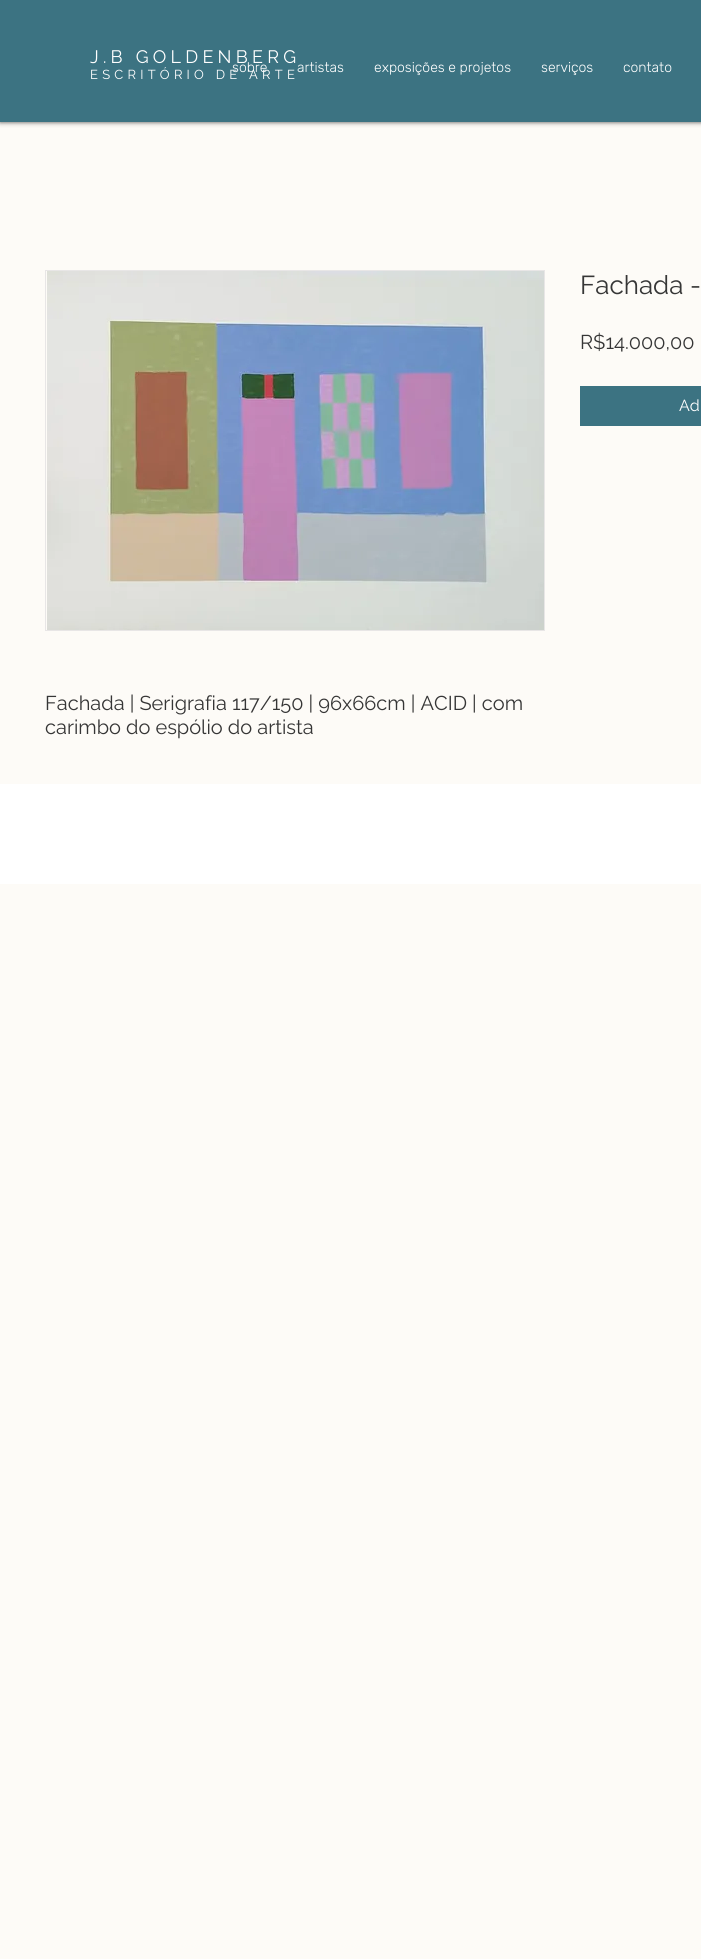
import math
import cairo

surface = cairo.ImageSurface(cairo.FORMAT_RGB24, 701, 1959)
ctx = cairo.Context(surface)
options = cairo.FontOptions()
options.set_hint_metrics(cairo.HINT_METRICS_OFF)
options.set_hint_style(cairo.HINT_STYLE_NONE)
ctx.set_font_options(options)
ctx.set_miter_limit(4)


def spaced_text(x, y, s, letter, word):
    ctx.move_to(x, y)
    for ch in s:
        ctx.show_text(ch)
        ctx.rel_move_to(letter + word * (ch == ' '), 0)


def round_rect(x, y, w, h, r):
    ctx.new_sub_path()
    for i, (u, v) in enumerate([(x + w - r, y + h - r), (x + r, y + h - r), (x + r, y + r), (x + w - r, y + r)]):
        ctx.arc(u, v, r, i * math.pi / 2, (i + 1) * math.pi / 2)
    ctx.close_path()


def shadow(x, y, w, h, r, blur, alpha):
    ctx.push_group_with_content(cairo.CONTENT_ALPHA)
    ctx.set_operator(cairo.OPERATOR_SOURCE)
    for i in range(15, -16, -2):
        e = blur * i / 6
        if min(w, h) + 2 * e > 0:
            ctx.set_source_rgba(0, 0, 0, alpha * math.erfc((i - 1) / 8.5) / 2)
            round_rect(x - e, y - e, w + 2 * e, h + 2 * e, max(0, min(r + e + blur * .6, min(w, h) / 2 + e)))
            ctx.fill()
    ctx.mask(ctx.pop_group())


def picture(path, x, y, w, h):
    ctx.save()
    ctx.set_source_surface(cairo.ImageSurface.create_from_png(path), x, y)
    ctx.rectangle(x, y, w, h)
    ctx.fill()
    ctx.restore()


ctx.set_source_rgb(0.992, 0.984, 0.965)
ctx.paint()
ctx.set_source_rgb(0, 0, 0)
shadow(0, 0, 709, 122, 0, 2.5, 0.7)
ctx.set_source_rgb(0.235, 0.451, 0.51)
ctx.rectangle(0, 0, 701, 122)
ctx.fill()
ctx.select_font_face("Raleway")
ctx.set_font_size(18)
ctx.set_source_rgb(1, 1, 1)
spaced_text(90, 63, "J.B GOLDENBERG", 4.25, 0)
ctx.select_font_face("Rubik Light")
ctx.set_font_size(14)
ctx.move_to(232, 72)
ctx.show_text("sobre")
ctx.select_font_face("Raleway")
ctx.set_font_size(13)
spaced_text(90, 79, "ESCRITÓRIO DE ARTE", 4.25, 0)
ctx.select_font_face("Rubik Light")
ctx.set_font_size(14)
ctx.move_to(297, 72)
ctx.show_text("artistas")
ctx.move_to(374, 72)
ctx.show_text("exposições e projetos")
ctx.move_to(541, 72)
ctx.show_text("serviços")
ctx.move_to(623, 72)
ctx.show_text("contato")
ctx.select_font_face("Raleway")
ctx.set_font_size(26)
ctx.set_source_rgb(0.212, 0.212, 0.212)
ctx.move_to(580, 294)
ctx.show_text("Fachada -")
ctx.set_font_size(20)
ctx.move_to(580, 349)
ctx.show_text("R$14.000,00")
ctx.set_source_rgb(0.235, 0.451, 0.51)
ctx.rectangle(580, 386, 121, 40)
ctx.fill()
ctx.set_font_size(16)
ctx.set_source_rgb(1, 1, 1)
ctx.move_to(679, 411)
ctx.show_text("Ad")
ctx.rectangle(45.5, 270.5, 499, 360)
ctx.set_source_rgb(0.91, 0.902, 0.902)
ctx.set_line_width(1)
ctx.stroke()
picture("img1.png", 47, 271, 497, 359)
ctx.set_font_size(20)
ctx.set_source_rgb(0.212, 0.212, 0.212)
ctx.move_to(45, 710)
ctx.show_text("Fachada | Serigrafia 117/150 | 96x66cm | ACID | com")
ctx.move_to(45, 734)
ctx.show_text("carimbo do espólio do artista")
ctx.set_source_rgb(1, 1, 1)
ctx.rectangle(0, 784, 701, 100)
ctx.fill()
surface.write_to_png("page.png")
